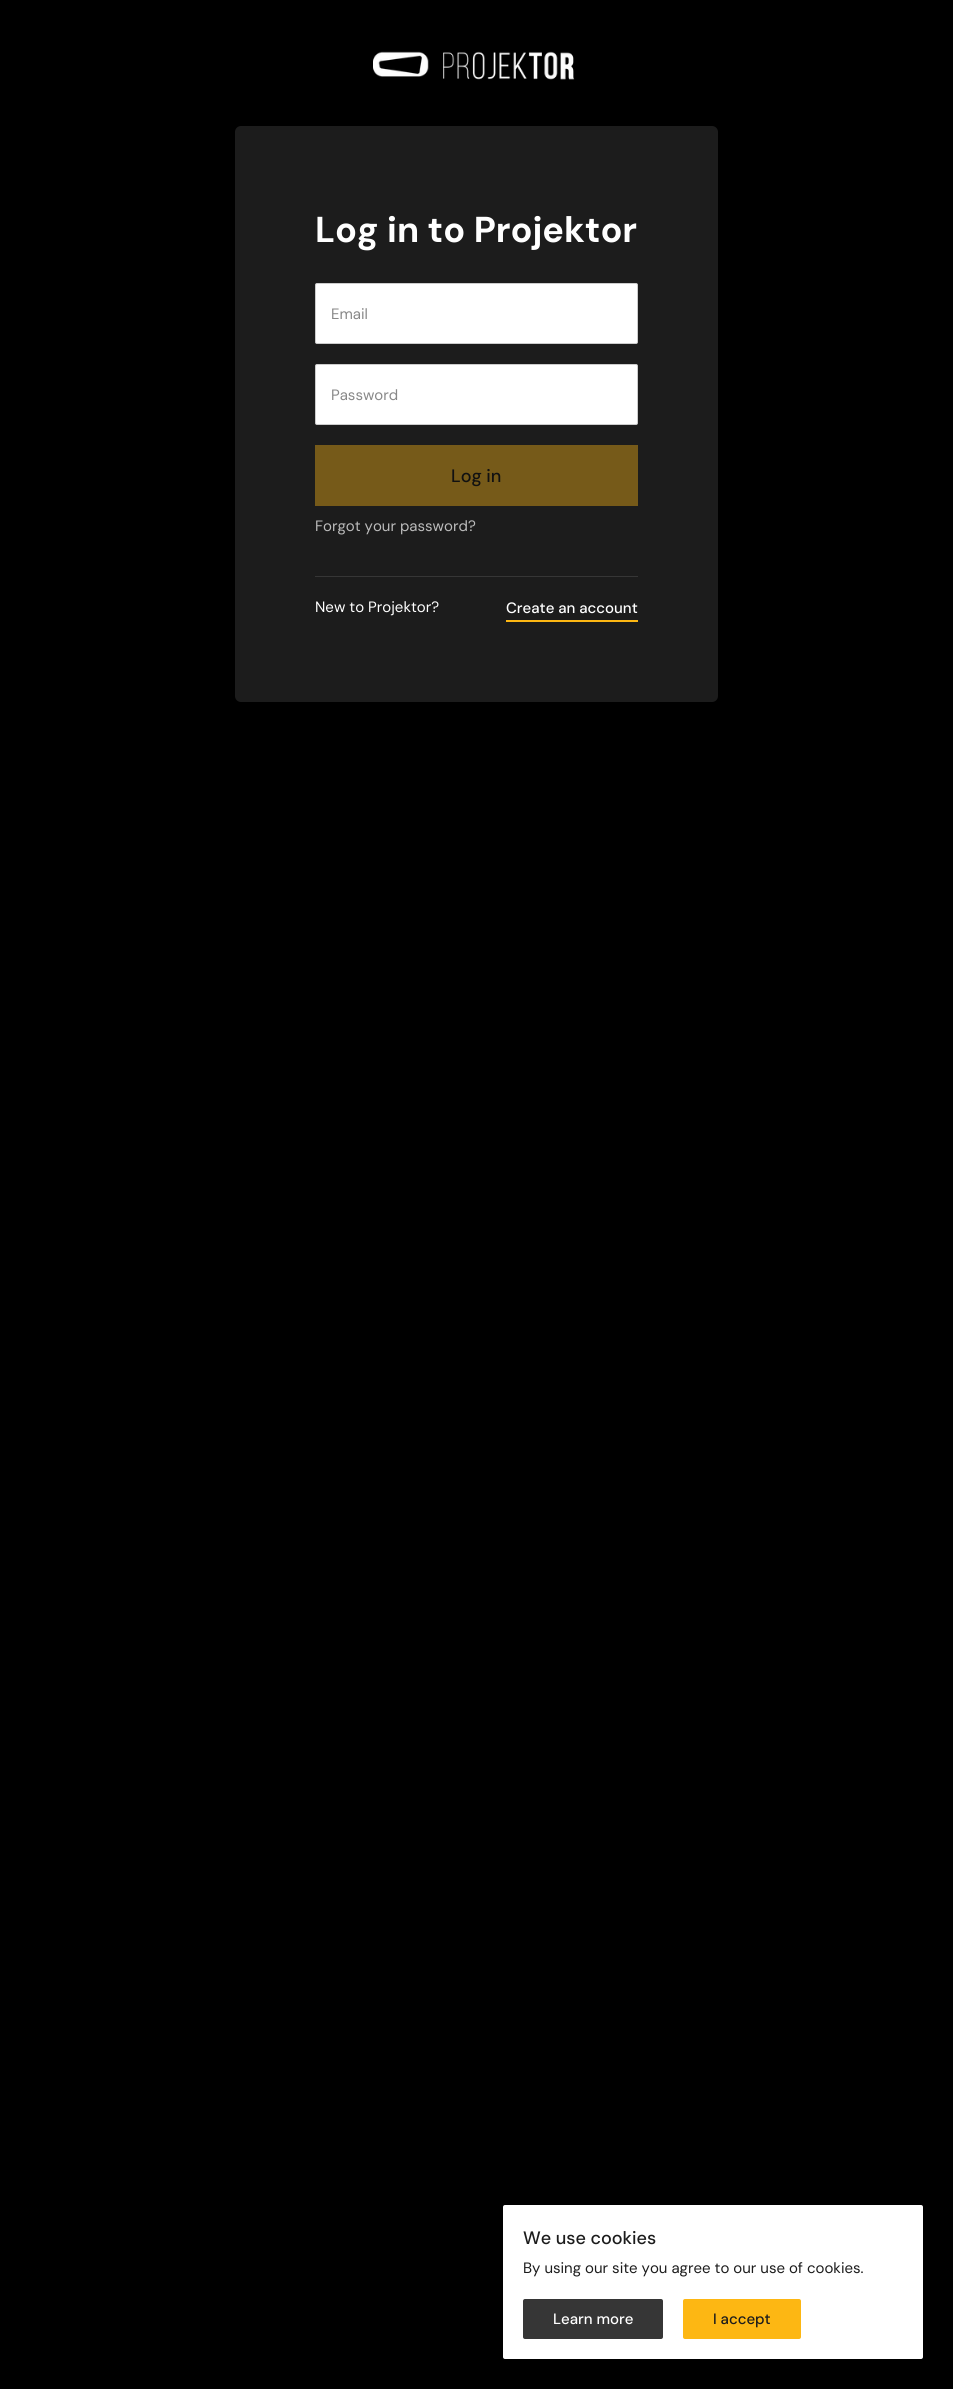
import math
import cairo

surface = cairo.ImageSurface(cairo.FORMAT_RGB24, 953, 2389)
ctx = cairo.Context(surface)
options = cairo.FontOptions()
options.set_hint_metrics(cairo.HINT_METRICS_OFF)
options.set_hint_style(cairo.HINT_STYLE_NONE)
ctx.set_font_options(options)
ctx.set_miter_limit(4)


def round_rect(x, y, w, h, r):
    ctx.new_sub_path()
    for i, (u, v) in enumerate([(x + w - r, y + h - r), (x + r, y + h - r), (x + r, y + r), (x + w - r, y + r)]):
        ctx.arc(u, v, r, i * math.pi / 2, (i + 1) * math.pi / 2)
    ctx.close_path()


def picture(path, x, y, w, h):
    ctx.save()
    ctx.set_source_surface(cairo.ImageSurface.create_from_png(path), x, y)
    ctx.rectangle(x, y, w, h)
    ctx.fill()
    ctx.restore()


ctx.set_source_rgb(0, 0, 0)
ctx.paint()
picture("img1.png", 373, 51, 202, 29)
ctx.set_source_rgb(0.11, 0.11, 0.11)
round_rect(235, 126, 483, 576, 6)
ctx.fill()
ctx.select_font_face("DM Sans", cairo.FONT_SLANT_NORMAL, cairo.FONT_WEIGHT_BOLD)
ctx.set_font_size(36)
ctx.set_source_rgb(1, 1, 1)
ctx.move_to(315, 242)
ctx.show_text("Log in to Projektor")
round_rect(315.5, 283.5, 322, 60, 1.5)
ctx.fill_preserve()
ctx.set_source_rgb(0.8, 0.8, 0.8)
ctx.set_line_width(1)
ctx.stroke()
ctx.select_font_face("DM Sans")
ctx.set_font_size(15)
ctx.set_source_rgb(0.533, 0.533, 0.533)
ctx.move_to(331, 319)
ctx.show_text("Email")
ctx.set_source_rgb(1, 1, 1)
round_rect(315.5, 364.5, 322, 60, 1.5)
ctx.fill_preserve()
ctx.set_source_rgb(0.8, 0.8, 0.8)
ctx.stroke()
ctx.set_source_rgb(0.533, 0.533, 0.533)
ctx.move_to(331, 400)
ctx.show_text("Password")
ctx.set_source_rgb(0.463, 0.353, 0.098)
ctx.rectangle(315, 445, 323, 61)
ctx.fill()
ctx.select_font_face("DM Sans Medium")
ctx.set_font_size(18)
ctx.set_source_rgb(0.067, 0.067, 0.067)
ctx.move_to(451, 482)
ctx.show_text("Log in")
ctx.select_font_face("DM Sans")
ctx.set_font_size(15)
ctx.set_source_rgb(0.733, 0.733, 0.733)
ctx.move_to(315, 531)
ctx.show_text("Forgot your password?")
ctx.set_source_rgb(0.212, 0.212, 0.212)
ctx.rectangle(315, 576, 323, 1)
ctx.fill()
ctx.set_source_rgb(1, 1, 1)
ctx.move_to(315, 612)
ctx.show_text("New to Projektor?")
ctx.set_source_rgb(0.992, 0.718, 0.078)
ctx.rectangle(506, 620, 132, 2)
ctx.fill()
ctx.select_font_face("DM Sans Medium")
ctx.set_source_rgb(1, 1, 1)
ctx.move_to(506, 613)
ctx.show_text("Create an account")
round_rect(503, 2205, 420, 154, 2)
ctx.fill()
ctx.set_font_size(18)
ctx.set_source_rgb(0.11, 0.11, 0.11)
ctx.move_to(523, 2244)
ctx.show_text("We use cookies")
ctx.select_font_face("DM Sans")
ctx.set_font_size(15)
ctx.move_to(523, 2273)
ctx.show_text("By using our site you agree to our use of cookies.")
ctx.set_source_rgb(0.212, 0.212, 0.212)
round_rect(523, 2299, 140, 40, 2)
ctx.fill()
ctx.select_font_face("DM Sans Medium")
ctx.set_source_rgb(1, 1, 1)
ctx.move_to(553, 2324)
ctx.show_text("Learn more")
ctx.set_source_rgb(0.992, 0.718, 0.078)
round_rect(683, 2299, 118, 40, 2)
ctx.fill()
ctx.set_source_rgb(0.11, 0.11, 0.11)
ctx.move_to(713, 2324)
ctx.show_text("I accept")
surface.write_to_png("page.png")
